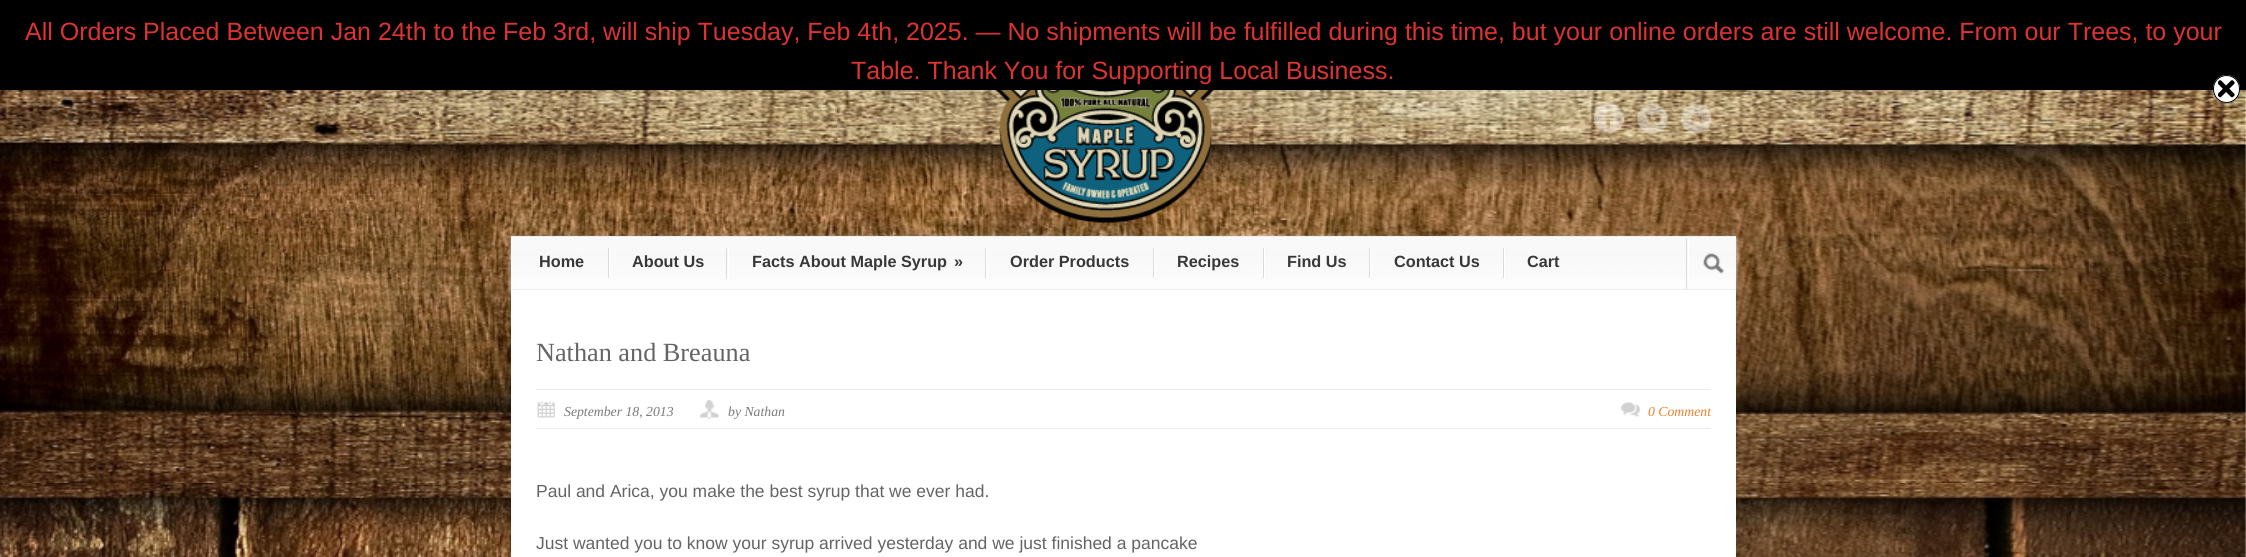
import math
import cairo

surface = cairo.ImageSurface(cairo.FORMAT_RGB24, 2246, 557)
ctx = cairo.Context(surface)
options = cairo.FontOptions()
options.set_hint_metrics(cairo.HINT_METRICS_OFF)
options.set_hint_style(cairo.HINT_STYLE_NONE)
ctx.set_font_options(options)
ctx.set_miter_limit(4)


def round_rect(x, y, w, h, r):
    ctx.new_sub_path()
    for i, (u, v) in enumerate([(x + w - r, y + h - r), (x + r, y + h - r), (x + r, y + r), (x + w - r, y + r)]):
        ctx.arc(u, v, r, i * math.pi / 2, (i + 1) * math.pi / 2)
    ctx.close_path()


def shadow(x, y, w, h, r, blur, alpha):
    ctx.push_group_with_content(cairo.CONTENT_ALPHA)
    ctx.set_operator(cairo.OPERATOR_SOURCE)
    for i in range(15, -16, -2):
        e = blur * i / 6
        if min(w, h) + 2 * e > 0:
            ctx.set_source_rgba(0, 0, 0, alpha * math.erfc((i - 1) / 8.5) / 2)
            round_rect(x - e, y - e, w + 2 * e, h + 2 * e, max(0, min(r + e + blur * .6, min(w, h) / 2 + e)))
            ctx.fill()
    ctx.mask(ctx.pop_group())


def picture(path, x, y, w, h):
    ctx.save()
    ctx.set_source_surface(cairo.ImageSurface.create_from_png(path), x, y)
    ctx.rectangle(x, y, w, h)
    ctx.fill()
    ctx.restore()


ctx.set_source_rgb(1, 1, 1)
ctx.paint()
ctx.set_source_rgb(0, 0, 0)
ctx.rectangle(0, 0, 2246, 90)
ctx.fill()
ctx.select_font_face("Liberation Sans")
ctx.set_font_size(25)
ctx.set_source_rgb(0.867, 0.2, 0.2)
ctx.move_to(25, 40)
ctx.show_text("All Orders Placed Between Jan 24th to the Feb 3rd, will ship Tuesday, Feb 4th, 2025. — No shipments will be fulfilled during this time, but your online orders are still welcome. From our Trees, to your")
ctx.move_to(851, 79)
ctx.show_text("Table. Thank You for Supporting Local Business.")
picture("img11.png", 0, 90, 2246, 467)
ctx.set_source_rgb(1, 1, 1)
round_rect(2213, 75, 27, 28, 13.5)
ctx.fill()
picture("img1.png", 2218, 80, 17, 18)
round_rect(2213.5, 75.5, 26, 27, 13)
ctx.set_source_rgb(0, 0, 0)
ctx.set_line_width(1)
ctx.stroke()
picture("img2.png", 995, 90, 220, 133)
picture("img3.png", 1593, 103, 31, 31)
picture("img4.png", 1637, 103, 31, 31)
picture("img5.png", 1681, 103, 31, 31)
ctx.set_source_rgb(0.961, 0.961, 0.961)
shadow(513, 239, 1222, 51, 0, 3, 1)
ctx.set_source_rgb(0.992, 0.992, 0.992)
ctx.rectangle(511, 237, 1225, 52)
ctx.fill()
picture("img6.png", 512, 237, 1225, 43)
ctx.set_source_rgb(0.925, 0.925, 0.925)
ctx.rectangle(511, 236, 1225, 1)
ctx.fill()
ctx.rectangle(511, 289, 1225, 1)
ctx.fill()
ctx.set_source_rgb(0.859, 0.859, 0.859)
ctx.rectangle(608, 248, 1, 30)
ctx.fill()
ctx.select_font_face("Liberation Sans", cairo.FONT_SLANT_NORMAL, cairo.FONT_WEIGHT_BOLD)
ctx.set_font_size(16.25)
ctx.set_source_rgb(0.22, 0.22, 0.22)
ctx.move_to(539, 267)
ctx.show_text("Home")
ctx.set_source_rgb(0.859, 0.859, 0.859)
ctx.rectangle(726, 248, 1, 30)
ctx.fill()
ctx.set_source_rgb(1, 1, 1)
ctx.rectangle(609, 248, 1, 30)
ctx.fill()
ctx.set_source_rgb(0.22, 0.22, 0.22)
ctx.move_to(632, 267)
ctx.show_text("About Us")
ctx.set_source_rgb(0.859, 0.859, 0.859)
ctx.rectangle(985, 248, 1, 30)
ctx.fill()
ctx.set_source_rgb(1, 1, 1)
ctx.rectangle(728, 248, 1, 30)
ctx.fill()
ctx.set_source_rgb(0.22, 0.22, 0.22)
ctx.move_to(752, 267)
ctx.show_text("Facts About Maple Syrup")
ctx.move_to(954, 267)
ctx.show_text("»")
ctx.set_source_rgb(0.859, 0.859, 0.859)
ctx.rectangle(1153, 248, 1, 30)
ctx.fill()
ctx.set_source_rgb(1, 1, 1)
ctx.rectangle(986, 248, 1, 30)
ctx.fill()
ctx.set_source_rgb(0.22, 0.22, 0.22)
ctx.move_to(1010, 267)
ctx.show_text("Order Products")
ctx.set_source_rgb(0.859, 0.859, 0.859)
ctx.rectangle(1263, 248, 1, 30)
ctx.fill()
ctx.set_source_rgb(1, 1, 1)
ctx.rectangle(1154, 248, 1, 30)
ctx.fill()
ctx.set_source_rgb(0.22, 0.22, 0.22)
ctx.move_to(1177, 267)
ctx.show_text("Recipes")
ctx.set_source_rgb(0.859, 0.859, 0.859)
ctx.rectangle(1369, 248, 1, 30)
ctx.fill()
ctx.set_source_rgb(1, 1, 1)
ctx.rectangle(1264, 248, 1, 30)
ctx.fill()
ctx.set_source_rgb(0.22, 0.22, 0.22)
ctx.move_to(1287, 267)
ctx.show_text("Find Us")
ctx.set_source_rgb(0.859, 0.859, 0.859)
ctx.rectangle(1503, 248, 1, 30)
ctx.fill()
ctx.set_source_rgb(1, 1, 1)
ctx.rectangle(1370, 248, 1, 30)
ctx.fill()
ctx.set_source_rgb(0.22, 0.22, 0.22)
ctx.move_to(1394, 267)
ctx.show_text("Contact Us")
ctx.set_source_rgb(1, 1, 1)
ctx.rectangle(1504, 248, 1, 30)
ctx.fill()
ctx.set_source_rgb(0.22, 0.22, 0.22)
ctx.move_to(1527, 267)
ctx.show_text("Cart")
ctx.set_source_rgb(0.859, 0.859, 0.859)
ctx.rectangle(1686, 238, 1, 51)
ctx.fill()
ctx.set_source_rgb(1, 1, 1)
ctx.rectangle(1688, 238, 1, 42)
ctx.fill()
picture("img7.png", 1702, 252, 22, 22)
ctx.rectangle(511, 290, 1225, 267)
ctx.fill()
ctx.select_font_face("Liberation Serif")
ctx.set_font_size(26.25)
ctx.set_source_rgb(0.392, 0.392, 0.392)
ctx.move_to(536, 361)
ctx.show_text("Nathan and Breauna")
ctx.set_source_rgb(0.925, 0.925, 0.925)
ctx.rectangle(536, 389, 1175, 1)
ctx.fill()
ctx.rectangle(536, 428, 1175, 1)
ctx.fill()
picture("img8.png", 537, 401, 18, 17)
ctx.select_font_face("Liberation Serif", cairo.FONT_SLANT_ITALIC)
ctx.set_font_size(13.75)
ctx.set_source_rgb(0.475, 0.475, 0.475)
ctx.move_to(564, 416)
ctx.show_text("September 18, 2013")
picture("img9.png", 700, 400, 19, 19)
ctx.move_to(728, 416)
ctx.show_text("by Nathan")
picture("img10.png", 1621, 402, 20, 15)
ctx.set_source_rgb(0.937, 0.498, 0.173)
ctx.move_to(1648, 416)
ctx.show_text("0 Comment")
ctx.select_font_face("Liberation Sans")
ctx.set_font_size(17.5)
ctx.set_source_rgb(0.392, 0.392, 0.392)
ctx.move_to(536, 497)
ctx.show_text("Paul and Arica, you make the best syrup that we ever had.")
ctx.move_to(536, 549)
ctx.show_text("Just wanted you to know your syrup arrived yesterday and we just finished a pancake")
surface.write_to_png("page.png")
